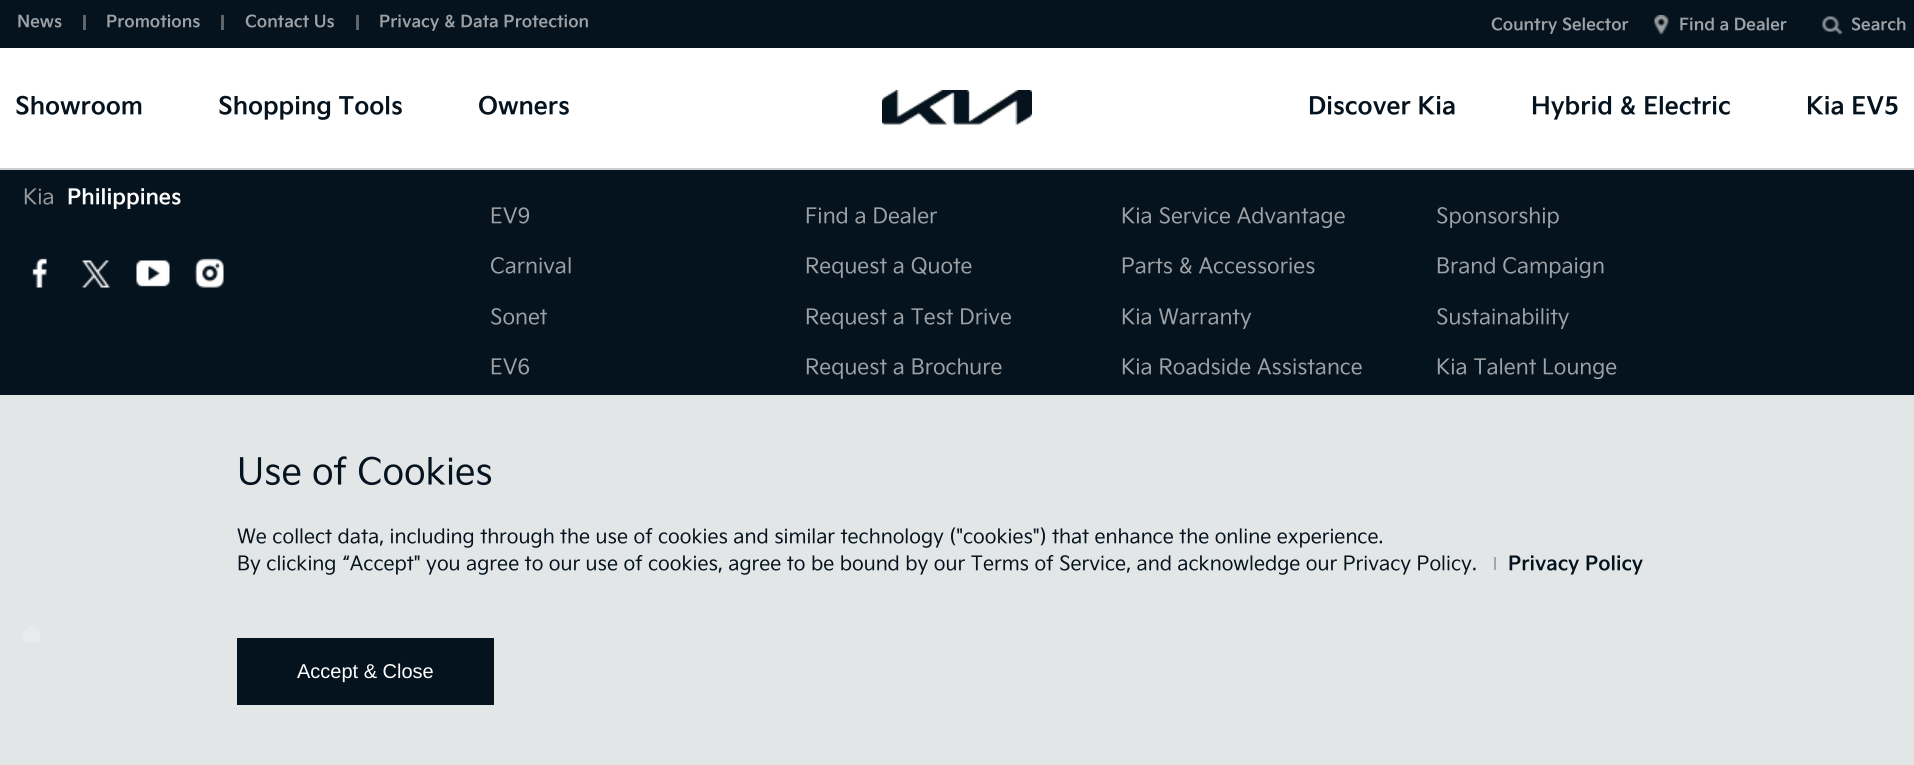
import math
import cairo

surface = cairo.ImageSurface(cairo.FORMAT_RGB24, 1914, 765)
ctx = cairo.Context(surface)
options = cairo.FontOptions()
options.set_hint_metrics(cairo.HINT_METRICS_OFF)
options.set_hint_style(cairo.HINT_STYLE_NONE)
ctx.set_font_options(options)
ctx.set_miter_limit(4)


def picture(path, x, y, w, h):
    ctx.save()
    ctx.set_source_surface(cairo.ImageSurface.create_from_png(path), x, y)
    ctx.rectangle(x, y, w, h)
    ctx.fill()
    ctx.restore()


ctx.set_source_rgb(0.02, 0.078, 0.122)
ctx.paint()
ctx.set_source_rgb(1, 1, 1)
ctx.rectangle(0, 48, 1914, 120)
ctx.fill()
ctx.set_source_rgb(0.8, 0.8, 0.8)
ctx.rectangle(0, 168, 1914, 2)
ctx.fill()
ctx.select_font_face("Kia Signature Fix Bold", cairo.FONT_SLANT_NORMAL, cairo.FONT_WEIGHT_BOLD)
ctx.set_font_size(16.5)
ctx.set_source_rgb(0.608, 0.631, 0.647)
ctx.move_to(17, 27)
ctx.show_text("News")
ctx.set_source_rgb(0.369, 0.4, 0.424)
ctx.rectangle(83, 15, 3, 15)
ctx.fill()
ctx.set_source_rgb(0.608, 0.631, 0.647)
ctx.move_to(106, 27)
ctx.show_text("Promotions")
ctx.set_source_rgb(0.369, 0.4, 0.424)
ctx.rectangle(221, 15, 3, 15)
ctx.fill()
ctx.set_source_rgb(0.608, 0.631, 0.647)
ctx.move_to(245, 27)
ctx.show_text("Contact Us")
ctx.set_source_rgb(0.369, 0.4, 0.424)
ctx.rectangle(356, 15, 3, 15)
ctx.fill()
ctx.set_source_rgb(0.608, 0.631, 0.647)
ctx.move_to(379, 27)
ctx.show_text("Privacy & Data Protection")
ctx.move_to(1491, 30)
ctx.show_text("Country Selector")
picture("img1.png", 1654, 15, 15, 20)
ctx.move_to(1679, 30)
ctx.show_text("Find a Dealer")
picture("img2.png", 1821, 16, 22, 19)
ctx.move_to(1851, 30)
ctx.show_text("Search")
ctx.set_font_size(24)
ctx.set_source_rgb(0.02, 0.078, 0.122)
ctx.move_to(15, 114)
ctx.show_text("Showroom")
ctx.move_to(218, 114)
ctx.show_text("Shopping Tools")
ctx.move_to(478, 114)
ctx.show_text("Owners")
ctx.move_to(1308, 114)
ctx.show_text("Discover Kia")
ctx.move_to(1531, 114)
ctx.show_text("Hybrid & Electric")
ctx.move_to(1806, 114)
ctx.show_text("Kia EV5")
picture("img3.png", 882, 90, 150, 35)
ctx.set_source_rgb(0.89, 0.902, 0.906)
ctx.rectangle(0, 395, 1914, 370)
ctx.fill()
ctx.select_font_face("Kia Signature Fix")
ctx.set_font_size(21)
ctx.set_source_rgb(0.6, 0.6, 0.6)
ctx.move_to(23, 204)
ctx.show_text("Kia")
ctx.select_font_face("Kia Signature Fix Bold", cairo.FONT_SLANT_NORMAL, cairo.FONT_WEIGHT_BOLD)
ctx.set_source_rgb(1, 1, 1)
ctx.move_to(67, 204)
ctx.show_text("Philippines")
picture("img4.png", 32, 258, 15, 30)
picture("img5.png", 82, 260, 28, 28)
picture("img6.png", 136, 260, 34, 27)
picture("img7.png", 194, 258, 30, 30)
ctx.select_font_face("Kia Signature Fix")
ctx.set_source_rgb(0.608, 0.631, 0.647)
ctx.move_to(490, 223)
ctx.show_text("EV9")
ctx.move_to(490, 273)
ctx.show_text("Carnival")
ctx.move_to(490, 324)
ctx.show_text("Sonet")
ctx.move_to(490, 374)
ctx.show_text("EV6")
ctx.move_to(805, 223)
ctx.show_text("Find a Dealer")
ctx.move_to(805, 273)
ctx.show_text("Request a Quote")
ctx.move_to(805, 324)
ctx.show_text("Request a Test Drive")
ctx.move_to(805, 374)
ctx.show_text("Request a Brochure")
ctx.move_to(1121, 223)
ctx.show_text("Kia Service Advantage")
ctx.move_to(1121, 273)
ctx.show_text("Parts & Accessories")
ctx.move_to(1121, 324)
ctx.show_text("Kia Warranty")
ctx.move_to(1121, 374)
ctx.show_text("Kia Roadside Assistance")
ctx.move_to(1436, 223)
ctx.show_text("Sponsorship")
ctx.move_to(1436, 273)
ctx.show_text("Brand Campaign")
ctx.move_to(1436, 324)
ctx.show_text("Sustainability")
ctx.move_to(1436, 374)
ctx.show_text("Kia Talent Lounge")
picture("img8.png", 22, 625, 19, 18)
ctx.set_font_size(36)
ctx.set_source_rgb(0.02, 0.078, 0.122)
ctx.move_to(237, 484)
ctx.show_text("Use of Cookies")
ctx.set_font_size(19.5)
ctx.move_to(237, 543)
ctx.show_text("We collect data, including through the use of cookies and similar technology (\"cookies\") that enhance the online experience.")
ctx.move_to(237, 570)
ctx.show_text("By clicking “Accept\" you agree to our use of cookies, agree to be bound by our Terms of Service, and acknowledge our Privacy Policy.")
ctx.set_source_rgb(0.647, 0.651, 0.659)
ctx.rectangle(1494, 557, 2, 13)
ctx.fill()
ctx.select_font_face("Kia Signature Fix Bold", cairo.FONT_SLANT_NORMAL, cairo.FONT_WEIGHT_BOLD)
ctx.set_source_rgb(0.02, 0.078, 0.122)
ctx.move_to(1508, 570)
ctx.show_text("Privacy Policy")
ctx.rectangle(237, 638, 257, 67)
ctx.fill()
ctx.select_font_face("Liberation Sans")
ctx.set_font_size(20)
ctx.set_source_rgb(1, 1, 1)
ctx.move_to(297, 678)
ctx.show_text("Accept & Close")
surface.write_to_png("page.png")
